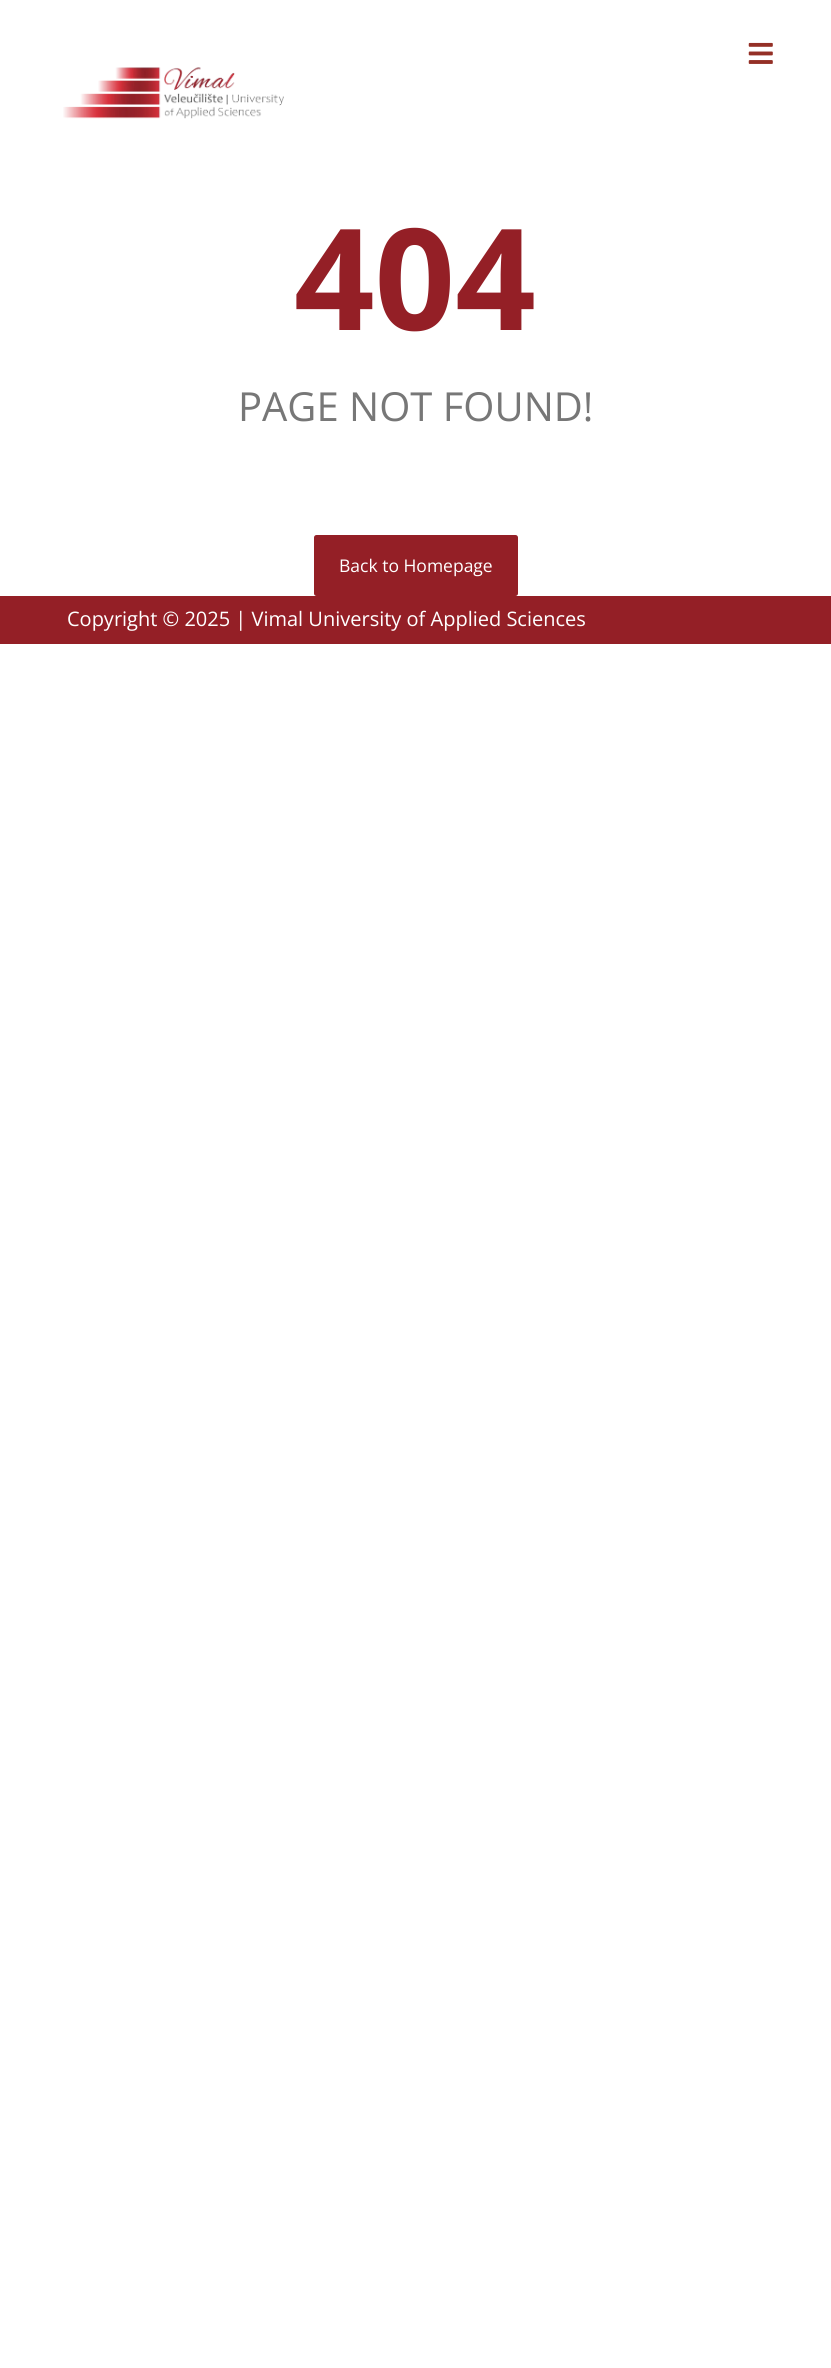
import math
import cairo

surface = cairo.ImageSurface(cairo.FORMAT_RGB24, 831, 2368)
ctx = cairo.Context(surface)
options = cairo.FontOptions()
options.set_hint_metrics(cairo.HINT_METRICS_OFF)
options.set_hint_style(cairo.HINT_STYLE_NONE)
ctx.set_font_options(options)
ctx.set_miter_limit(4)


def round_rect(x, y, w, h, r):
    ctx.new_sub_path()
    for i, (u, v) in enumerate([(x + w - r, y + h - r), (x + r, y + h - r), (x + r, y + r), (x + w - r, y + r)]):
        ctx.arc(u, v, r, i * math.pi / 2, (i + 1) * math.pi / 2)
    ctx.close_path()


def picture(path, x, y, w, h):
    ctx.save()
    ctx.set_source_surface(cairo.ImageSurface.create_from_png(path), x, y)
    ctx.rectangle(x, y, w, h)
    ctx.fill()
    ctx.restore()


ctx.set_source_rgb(1, 1, 1)
ctx.paint()
picture("img1.png", 748, 42, 25, 22)
picture("img2.png", 63, 67, 221, 52)
ctx.select_font_face("Open Sans", cairo.FONT_SLANT_NORMAL, cairo.FONT_WEIGHT_BOLD)
ctx.set_font_size(141)
ctx.set_source_rgb(0.58, 0.122, 0.149)
ctx.move_to(294, 330)
ctx.show_text("404")
ctx.select_font_face("Open Sans")
ctx.set_font_size(40)
ctx.set_source_rgb(0.467, 0.467, 0.467)
ctx.move_to(238, 421)
ctx.show_text("PAGE NOT FOUND!")
ctx.set_source_rgb(0.58, 0.122, 0.149)
round_rect(314, 535, 204, 61, 2.5)
ctx.fill()
ctx.set_font_size(17.5)
ctx.set_source_rgb(1, 1, 1)
ctx.move_to(339, 572)
ctx.show_text("Back to Homepage")
ctx.set_source_rgb(0.58, 0.122, 0.149)
ctx.rectangle(0, 596, 831, 48)
ctx.fill()
ctx.set_font_size(20)
ctx.set_source_rgb(1, 1, 1)
ctx.move_to(67, 626)
ctx.show_text("Copyright © 2025 | Vimal University of Applied Sciences")
surface.write_to_png("page.png")
